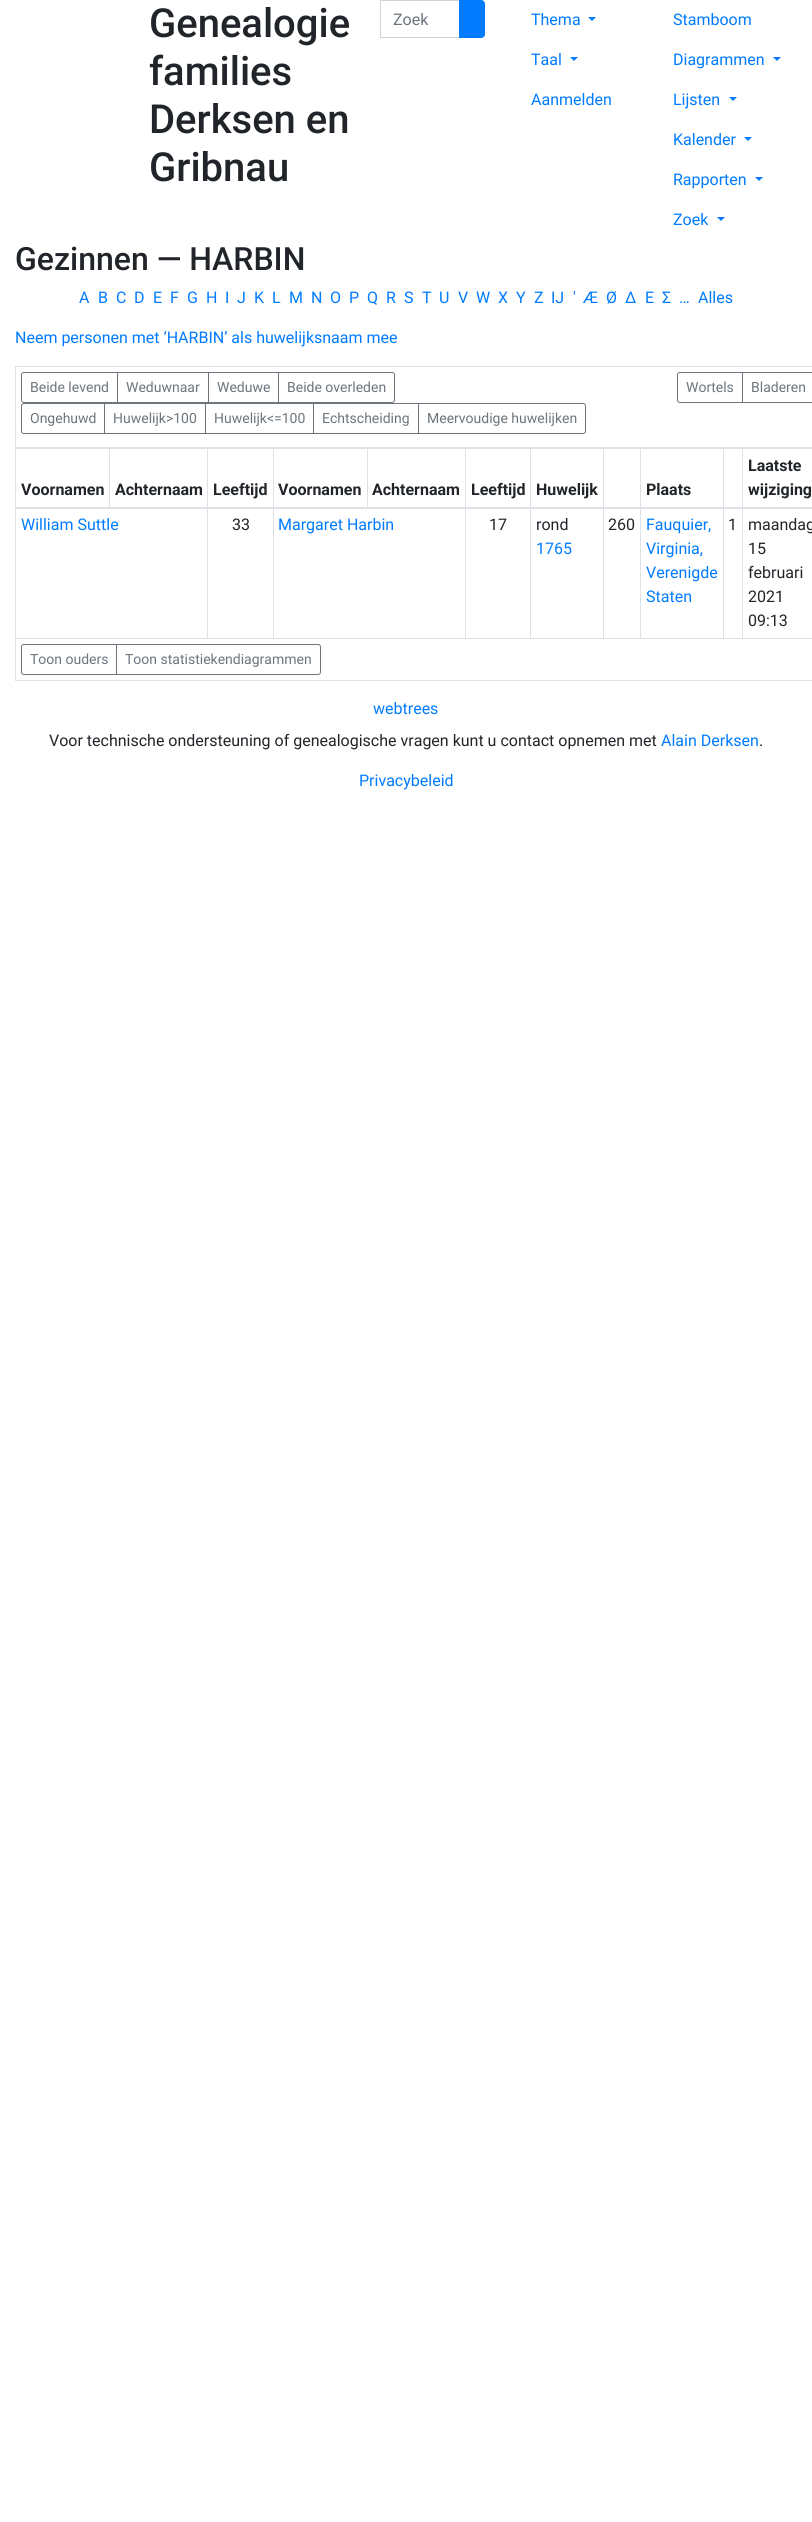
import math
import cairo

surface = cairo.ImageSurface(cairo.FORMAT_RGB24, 812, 2522)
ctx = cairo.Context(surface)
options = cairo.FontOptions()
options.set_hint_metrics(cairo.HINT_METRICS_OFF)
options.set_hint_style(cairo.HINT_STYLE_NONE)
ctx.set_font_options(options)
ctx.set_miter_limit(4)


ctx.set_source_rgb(1, 1, 1)
ctx.paint()
ctx.select_font_face("Roboto Medium")
ctx.set_font_size(40)
ctx.set_source_rgb(0.129, 0.145, 0.161)
ctx.move_to(149, 37)
ctx.show_text("Genealogie")
ctx.move_to(149, 85)
ctx.show_text("families")
ctx.move_to(149, 133)
ctx.show_text("Derksen en")
ctx.move_to(149, 181)
ctx.show_text("Gribnau")
ctx.rectangle(380.5, 0.5, 79, 37)
ctx.set_source_rgb(0.808, 0.831, 0.855)
ctx.set_line_width(1)
ctx.stroke()
ctx.select_font_face("Roboto")
ctx.set_font_size(16)
ctx.set_source_rgb(0.424, 0.459, 0.49)
ctx.move_to(393, 25)
ctx.show_text("Zoek")
ctx.set_source_rgb(0, 0.482, 1)
ctx.new_path()
ctx.move_to(459.5, 0.5)
ctx.line_to(481, 0.5)
ctx.curve_to(483, 0.5, 484.5, 2, 484.5, 4)
ctx.line_to(484.5, 34)
ctx.curve_to(484.5, 36, 483, 37.5, 481, 37.5)
ctx.line_to(459.5, 37.5)
ctx.close_path()
ctx.fill_preserve()
ctx.stroke()
ctx.move_to(531, 25)
ctx.show_text("Thema")
ctx.new_path()
ctx.move_to(588, 17)
ctx.line_to(596, 17)
ctx.line_to(592, 21)
ctx.close_path()
ctx.fill()
ctx.move_to(531, 65)
ctx.show_text("Taal")
ctx.new_path()
ctx.move_to(570, 57)
ctx.line_to(578, 57)
ctx.line_to(574, 61)
ctx.close_path()
ctx.fill()
ctx.move_to(531, 105)
ctx.show_text("Aanmelden")
ctx.move_to(673, 25)
ctx.show_text("Stamboom")
ctx.move_to(673, 65)
ctx.show_text("Diagrammen")
ctx.new_path()
ctx.move_to(773, 57)
ctx.line_to(781, 57)
ctx.line_to(777, 61)
ctx.close_path()
ctx.fill()
ctx.move_to(673, 105)
ctx.show_text("Lijsten")
ctx.new_path()
ctx.move_to(729, 97)
ctx.line_to(737, 97)
ctx.line_to(733, 101)
ctx.close_path()
ctx.fill()
ctx.move_to(673, 145)
ctx.show_text("Kalender")
ctx.new_path()
ctx.move_to(744, 137)
ctx.line_to(752, 137)
ctx.line_to(748, 141)
ctx.close_path()
ctx.fill()
ctx.move_to(673, 185)
ctx.show_text("Rapporten")
ctx.new_path()
ctx.move_to(755, 177)
ctx.line_to(763, 177)
ctx.line_to(759, 181)
ctx.close_path()
ctx.fill()
ctx.move_to(673, 225)
ctx.show_text("Zoek")
ctx.new_path()
ctx.move_to(717, 217)
ctx.line_to(725, 217)
ctx.line_to(721, 221)
ctx.close_path()
ctx.fill()
ctx.select_font_face("Roboto Medium")
ctx.set_font_size(32)
ctx.set_source_rgb(0.129, 0.145, 0.161)
ctx.move_to(15, 270)
ctx.show_text("Gezinnen — HARBIN")
ctx.select_font_face("Roboto")
ctx.set_font_size(16)
ctx.set_source_rgb(0, 0.482, 1)
ctx.move_to(79, 303)
ctx.show_text("A")
ctx.move_to(98, 303)
ctx.show_text("B")
ctx.move_to(116, 303)
ctx.show_text("C")
ctx.move_to(134, 303)
ctx.show_text("D")
ctx.move_to(153, 303)
ctx.show_text("E")
ctx.move_to(170, 303)
ctx.show_text("F")
ctx.move_to(187, 303)
ctx.show_text("G")
ctx.move_to(206, 303)
ctx.show_text("H")
ctx.move_to(225, 303)
ctx.show_text("I")
ctx.move_to(237, 303)
ctx.show_text("J")
ctx.move_to(254, 303)
ctx.show_text("K")
ctx.move_to(272, 303)
ctx.show_text("L")
ctx.move_to(289, 303)
ctx.show_text("M")
ctx.move_to(311, 303)
ctx.show_text("N")
ctx.move_to(330, 303)
ctx.show_text("O")
ctx.move_to(349, 303)
ctx.show_text("P")
ctx.move_to(367, 303)
ctx.show_text("Q")
ctx.move_to(386, 303)
ctx.show_text("R")
ctx.move_to(404, 303)
ctx.show_text("S")
ctx.move_to(422, 303)
ctx.show_text("T")
ctx.move_to(439, 303)
ctx.show_text("U")
ctx.move_to(458, 303)
ctx.show_text("V")
ctx.move_to(476, 303)
ctx.show_text("W")
ctx.move_to(498, 303)
ctx.show_text("X")
ctx.move_to(516, 303)
ctx.show_text("Y")
ctx.move_to(534, 303)
ctx.show_text("Z")
ctx.move_to(551, 303)
ctx.show_text("IJ")
ctx.move_to(573, 303)
ctx.show_text("'")
ctx.move_to(583, 303)
ctx.show_text("Æ")
ctx.move_to(606, 303)
ctx.show_text("Ø")
ctx.move_to(625, 303)
ctx.show_text("Δ")
ctx.move_to(645, 303)
ctx.show_text("Ε")
ctx.move_to(662, 303)
ctx.show_text("Σ")
ctx.move_to(679, 303)
ctx.show_text("…")
ctx.move_to(698, 303)
ctx.show_text("Alles")
ctx.move_to(15, 343)
ctx.show_text("Neem personen met ‘HARBIN’ als huwelijksnaam mee")
ctx.set_source_rgb(0.871, 0.886, 0.902)
ctx.rectangle(15, 366, 797, 1)
ctx.fill()
ctx.rectangle(15, 680, 797, 1)
ctx.fill()
ctx.rectangle(15, 366, 1, 315)
ctx.fill()
ctx.rectangle(109, 447, 1, 61)
ctx.fill()
ctx.rectangle(367, 447, 1, 61)
ctx.fill()
ctx.rectangle(15, 638, 797, 1)
ctx.fill()
ctx.rectangle(207, 447, 1, 192)
ctx.fill()
ctx.rectangle(273, 447, 1, 192)
ctx.fill()
ctx.rectangle(465, 447, 1, 192)
ctx.fill()
ctx.rectangle(530, 447, 1, 192)
ctx.fill()
ctx.rectangle(603, 447, 1, 192)
ctx.fill()
ctx.rectangle(640, 447, 1, 192)
ctx.fill()
ctx.rectangle(723, 447, 1, 192)
ctx.fill()
ctx.rectangle(742, 447, 1, 192)
ctx.fill()
ctx.rectangle(15, 447, 797, 2)
ctx.fill()
ctx.new_path()
ctx.move_to(24, 372.5)
ctx.line_to(117.5, 372.5)
ctx.line_to(117.5, 402.5)
ctx.line_to(24, 402.5)
ctx.curve_to(22.5, 402.5, 21.5, 401.5, 21.5, 400)
ctx.line_to(21.5, 375)
ctx.curve_to(21.5, 373.5, 22.5, 372.5, 24, 372.5)
ctx.close_path()
ctx.set_source_rgb(0.424, 0.459, 0.49)
ctx.stroke()
ctx.set_font_size(14)
ctx.move_to(30, 392)
ctx.show_text("Beide levend")
ctx.rectangle(117.5, 372.5, 91, 30)
ctx.stroke()
ctx.move_to(126, 392)
ctx.show_text("Weduwnaar")
ctx.rectangle(208.5, 372.5, 70, 30)
ctx.stroke()
ctx.move_to(217, 392)
ctx.show_text("Weduwe")
ctx.new_path()
ctx.move_to(278.5, 372.5)
ctx.line_to(392, 372.5)
ctx.curve_to(393.5, 372.5, 394.5, 373.5, 394.5, 375)
ctx.line_to(394.5, 400)
ctx.curve_to(394.5, 401.5, 393.5, 402.5, 392, 402.5)
ctx.line_to(278.5, 402.5)
ctx.close_path()
ctx.stroke()
ctx.move_to(287, 392)
ctx.show_text("Beide overleden")
ctx.new_path()
ctx.move_to(680, 372.5)
ctx.line_to(742.5, 372.5)
ctx.line_to(742.5, 402.5)
ctx.line_to(680, 402.5)
ctx.curve_to(678.5, 402.5, 677.5, 401.5, 677.5, 400)
ctx.line_to(677.5, 375)
ctx.curve_to(677.5, 373.5, 678.5, 372.5, 680, 372.5)
ctx.close_path()
ctx.stroke()
ctx.move_to(686, 392)
ctx.show_text("Wortels")
ctx.rectangle(742.5, 372.5, 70, 30)
ctx.stroke()
ctx.move_to(751, 392)
ctx.show_text("Bladeren")
ctx.new_path()
ctx.move_to(24, 403.5)
ctx.line_to(104.5, 403.5)
ctx.line_to(104.5, 433.5)
ctx.line_to(24, 433.5)
ctx.curve_to(22.5, 433.5, 21.5, 432.5, 21.5, 431)
ctx.line_to(21.5, 406)
ctx.curve_to(21.5, 404.5, 22.5, 403.5, 24, 403.5)
ctx.close_path()
ctx.stroke()
ctx.move_to(30, 423)
ctx.show_text("Ongehuwd")
ctx.rectangle(104.5, 403.5, 101, 30)
ctx.stroke()
ctx.move_to(113, 423)
ctx.show_text("Huwelijk>100")
ctx.rectangle(205.5, 403.5, 108, 30)
ctx.stroke()
ctx.move_to(214, 423)
ctx.show_text("Huwelijk<=100")
ctx.rectangle(313.5, 403.5, 105, 30)
ctx.stroke()
ctx.move_to(322, 423)
ctx.show_text("Echtscheiding")
ctx.new_path()
ctx.move_to(418.5, 403.5)
ctx.line_to(583, 403.5)
ctx.curve_to(584.5, 403.5, 585.5, 404.5, 585.5, 406)
ctx.line_to(585.5, 431)
ctx.curve_to(585.5, 432.5, 584.5, 433.5, 583, 433.5)
ctx.line_to(418.5, 433.5)
ctx.close_path()
ctx.stroke()
ctx.move_to(427, 423)
ctx.show_text("Meervoudige huwelijken")
ctx.select_font_face("Roboto", cairo.FONT_SLANT_NORMAL, cairo.FONT_WEIGHT_BOLD)
ctx.set_font_size(16)
ctx.set_source_rgb(0.129, 0.145, 0.161)
ctx.move_to(21, 495)
ctx.show_text("Voornamen")
ctx.move_to(115, 495)
ctx.show_text("Achternaam")
ctx.move_to(213, 495)
ctx.show_text("Leeftijd")
ctx.move_to(278, 495)
ctx.show_text("Voornamen")
ctx.move_to(372, 495)
ctx.show_text("Achternaam")
ctx.move_to(471, 495)
ctx.show_text("Leeftijd")
ctx.move_to(536, 495)
ctx.show_text("Huwelijk")
ctx.move_to(646, 495)
ctx.show_text("Plaats")
ctx.set_source_rgb(0.871, 0.886, 0.902)
ctx.rectangle(15, 507, 797, 2)
ctx.fill()
ctx.set_source_rgb(0.129, 0.145, 0.161)
ctx.move_to(748, 471)
ctx.show_text("Laatste")
ctx.move_to(748, 495)
ctx.show_text("wijziging")
ctx.select_font_face("Roboto")
ctx.set_source_rgb(0, 0.482, 1)
ctx.move_to(21, 530)
ctx.show_text("William Suttle")
ctx.set_source_rgb(0.129, 0.145, 0.161)
ctx.move_to(232, 530)
ctx.show_text("33")
ctx.set_source_rgb(0, 0.482, 1)
ctx.move_to(278, 530)
ctx.show_text("Margaret Harbin")
ctx.set_source_rgb(0.129, 0.145, 0.161)
ctx.move_to(489, 530)
ctx.show_text("17")
ctx.move_to(536, 530)
ctx.show_text("rond")
ctx.set_source_rgb(0, 0.482, 1)
ctx.move_to(536, 554)
ctx.show_text("1765")
ctx.set_source_rgb(0.129, 0.145, 0.161)
ctx.move_to(608, 530)
ctx.show_text("260")
ctx.set_source_rgb(0, 0.482, 1)
ctx.move_to(646, 530)
ctx.show_text("Fauquier,")
ctx.move_to(646, 554)
ctx.show_text("Virginia,")
ctx.move_to(646, 578)
ctx.show_text("Verenigde")
ctx.move_to(646, 602)
ctx.show_text("Staten")
ctx.set_source_rgb(0.129, 0.145, 0.161)
ctx.move_to(728, 530)
ctx.show_text("1")
ctx.move_to(748, 530)
ctx.show_text("maandag")
ctx.move_to(748, 554)
ctx.show_text("15")
ctx.move_to(748, 578)
ctx.show_text("februari")
ctx.move_to(748, 602)
ctx.show_text("2021")
ctx.move_to(748, 626)
ctx.show_text("09:13")
ctx.new_path()
ctx.move_to(24, 644.5)
ctx.line_to(116.5, 644.5)
ctx.line_to(116.5, 674.5)
ctx.line_to(24, 674.5)
ctx.curve_to(22.5, 674.5, 21.5, 673.5, 21.5, 672)
ctx.line_to(21.5, 647)
ctx.curve_to(21.5, 645.5, 22.5, 644.5, 24, 644.5)
ctx.close_path()
ctx.set_source_rgb(0.424, 0.459, 0.49)
ctx.stroke()
ctx.set_font_size(14)
ctx.move_to(30, 664)
ctx.show_text("Toon ouders")
ctx.new_path()
ctx.move_to(116.5, 644.5)
ctx.line_to(318, 644.5)
ctx.curve_to(319.5, 644.5, 320.5, 645.5, 320.5, 647)
ctx.line_to(320.5, 672)
ctx.curve_to(320.5, 673.5, 319.5, 674.5, 318, 674.5)
ctx.line_to(116.5, 674.5)
ctx.close_path()
ctx.stroke()
ctx.move_to(125, 664)
ctx.show_text("Toon statistiekendiagrammen")
ctx.set_font_size(16)
ctx.set_source_rgb(0, 0.482, 1)
ctx.move_to(373, 714)
ctx.show_text("webtrees")
ctx.set_source_rgb(0.129, 0.145, 0.161)
ctx.move_to(49, 746)
ctx.show_text("Voor technische ondersteuning of genealogische vragen kunt u contact opnemen met")
ctx.set_source_rgb(0, 0.482, 1)
ctx.move_to(661, 746)
ctx.show_text("Alain Derksen")
ctx.set_source_rgb(0.129, 0.145, 0.161)
ctx.move_to(759, 746)
ctx.show_text(".")
ctx.set_source_rgb(0, 0.482, 1)
ctx.move_to(359, 786)
ctx.show_text("Privacybeleid")
surface.write_to_png("page.png")
